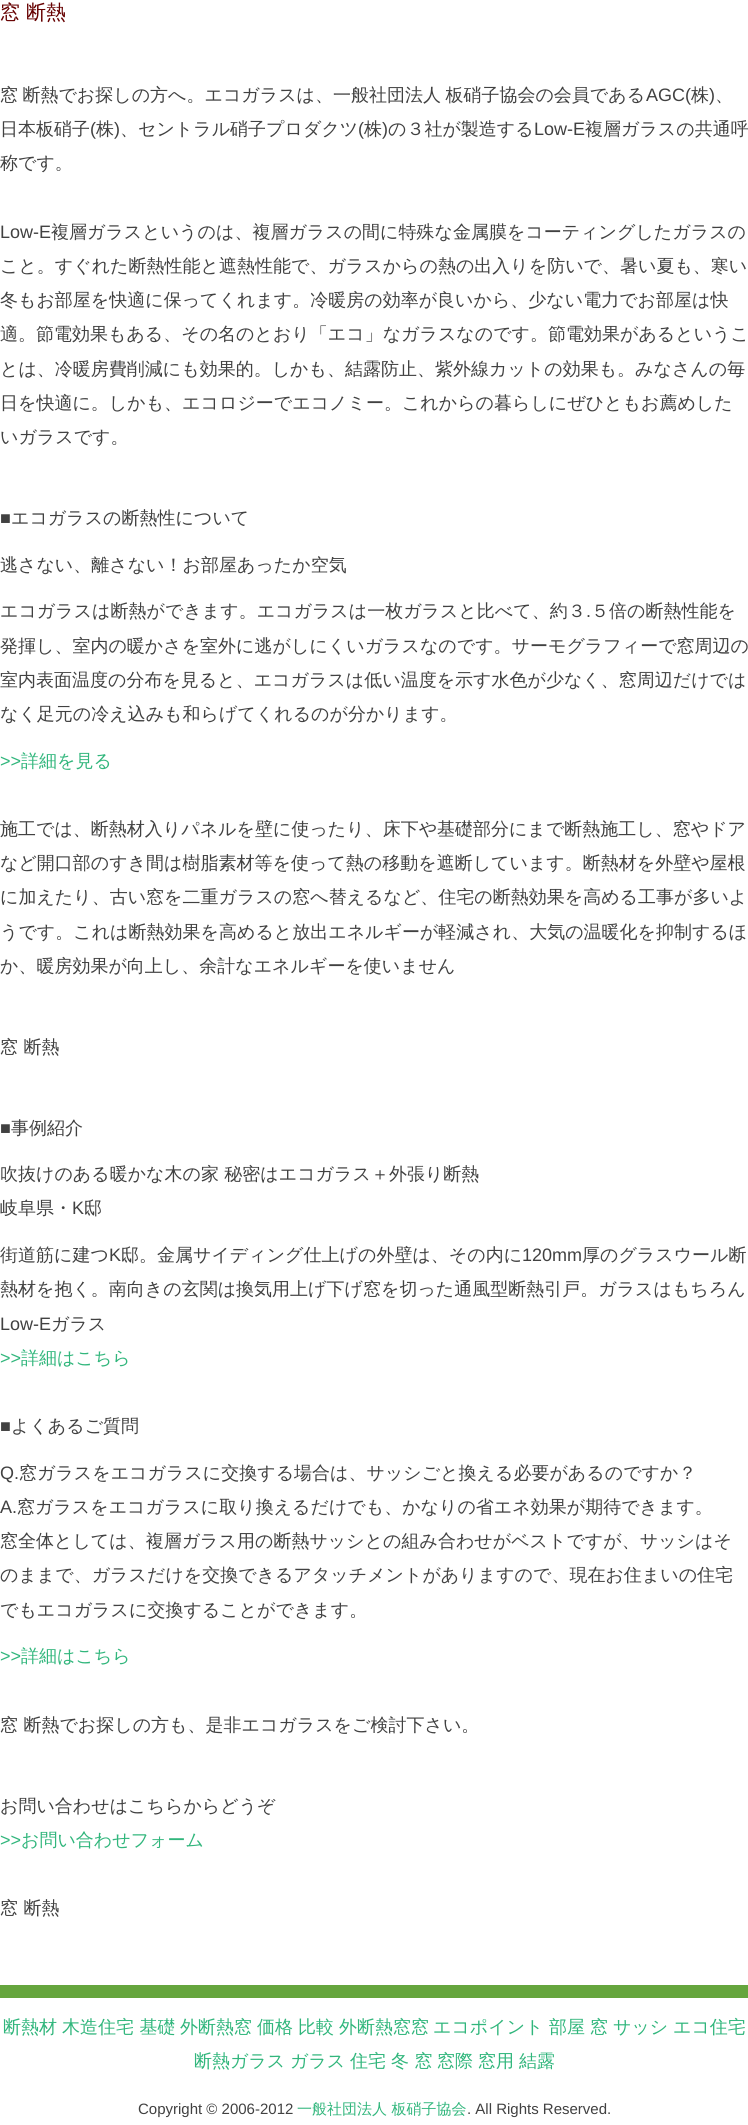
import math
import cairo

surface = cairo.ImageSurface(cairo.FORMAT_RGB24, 748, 2125)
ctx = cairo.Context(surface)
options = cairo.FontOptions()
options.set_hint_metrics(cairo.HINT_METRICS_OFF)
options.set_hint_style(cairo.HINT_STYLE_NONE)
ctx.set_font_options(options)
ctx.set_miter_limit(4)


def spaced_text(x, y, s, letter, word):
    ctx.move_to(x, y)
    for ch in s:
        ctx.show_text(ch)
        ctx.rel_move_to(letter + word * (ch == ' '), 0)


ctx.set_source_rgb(1, 1, 1)
ctx.paint()
ctx.select_font_face("WenQuanYi Zen Hei Medium")
ctx.set_font_size(20)
ctx.set_source_rgb(0.4, 0, 0)
ctx.move_to(0, 19)
ctx.show_text("窓 断熱")
ctx.set_font_size(18)
ctx.set_source_rgb(0.255, 0.255, 0.255)
spaced_text(0, 101, "窓 断熱でお探しの方へ。エコガラスは、一般社団法人 板硝子協会の会員である", 0, -1)
ctx.select_font_face("Liberation Sans")
ctx.move_to(646, 101)
ctx.show_text("AGC(")
ctx.select_font_face("WenQuanYi Zen Hei Medium")
ctx.move_to(691, 101)
ctx.show_text("株")
ctx.select_font_face("Liberation Sans")
ctx.move_to(709, 101)
ctx.show_text(")")
ctx.select_font_face("WenQuanYi Zen Hei Medium")
ctx.move_to(715, 101)
ctx.show_text("、")
ctx.move_to(0, 135)
ctx.show_text("日本板硝子")
ctx.select_font_face("Liberation Sans")
ctx.move_to(90, 135)
ctx.show_text("(")
ctx.select_font_face("WenQuanYi Zen Hei Medium")
ctx.move_to(96, 135)
ctx.show_text("株")
ctx.select_font_face("Liberation Sans")
ctx.move_to(114, 135)
ctx.show_text(")")
ctx.select_font_face("WenQuanYi Zen Hei Medium")
ctx.move_to(120, 135)
ctx.show_text("、セントラル硝子プロダクツ")
ctx.select_font_face("Liberation Sans")
ctx.move_to(358, 135)
ctx.show_text("(")
ctx.select_font_face("WenQuanYi Zen Hei Medium")
ctx.move_to(364, 135)
ctx.show_text("株")
ctx.select_font_face("Liberation Sans")
ctx.move_to(382, 135)
ctx.show_text(")")
ctx.select_font_face("WenQuanYi Zen Hei Medium")
ctx.move_to(388, 135)
ctx.show_text("の３社が製造する")
ctx.select_font_face("Liberation Sans")
ctx.move_to(534, 135)
ctx.show_text("Low-E")
ctx.select_font_face("WenQuanYi Zen Hei Medium")
ctx.move_to(585, 135)
ctx.show_text("複層ガラスの共通呼")
ctx.move_to(0, 169)
ctx.show_text("称です。")
ctx.select_font_face("Liberation Sans")
ctx.move_to(0, 238)
ctx.show_text("Low-E")
ctx.select_font_face("WenQuanYi Zen Hei Medium")
ctx.move_to(51, 238)
ctx.show_text("複層ガラスというのは、複層ガラスの間に特殊な金属膜をコーティングしたガラスの")
ctx.move_to(0, 272)
ctx.show_text("こと。すぐれた断熱性能と遮熱性能で、ガラスからの熱の出入りを防いで、暑い夏も、寒い")
ctx.move_to(0, 306)
ctx.show_text("冬もお部屋を快適に保ってくれます。冷暖房の効率が良いから、少ない電力でお部屋は快")
ctx.move_to(0, 340)
ctx.show_text("適。節電効果もある、その名のとおり「エコ」なガラスなのです。節電効果があるというこ")
ctx.move_to(0, 375)
ctx.show_text("とは、冷暖房費削減にも効果的。しかも、結露防止、紫外線カットの効果も。みなさんの毎")
ctx.move_to(0, 409)
ctx.show_text("日を快適に。しかも、エコロジーでエコノミー。これからの暮らしにぜひともお薦めした")
ctx.move_to(0, 443)
ctx.show_text("いガラスです。")
ctx.select_font_face("Liberation Sans")
ctx.move_to(0, 524)
ctx.show_text("■")
ctx.select_font_face("WenQuanYi Zen Hei Medium")
ctx.move_to(11, 524)
ctx.show_text("エコガラスの断熱性について")
ctx.move_to(0, 571)
ctx.show_text("逃さない、離さない！お部屋あったか空気")
ctx.move_to(0, 617)
ctx.show_text("エコガラスは断熱ができます。エコガラスは一枚ガラスと比べて、約３")
ctx.select_font_face("Liberation Sans")
ctx.move_to(586, 617)
ctx.show_text(".")
ctx.select_font_face("WenQuanYi Zen Hei Medium")
ctx.move_to(591, 617)
ctx.show_text("５倍の断熱性能を")
ctx.move_to(0, 652)
ctx.show_text("発揮し、室内の暖かさを室外に逃がしにくいガラスなのです。サーモグラフィーで窓周辺の")
ctx.move_to(0, 686)
ctx.show_text("室内表面温度の分布を見ると、エコガラスは低い温度を示す水色が少なく、窓周辺だけでは")
ctx.move_to(0, 720)
ctx.show_text("なく足元の冷え込みも和らげてくれるのが分かります。")
ctx.select_font_face("Liberation Sans")
ctx.set_source_rgb(0.192, 0.714, 0.486)
ctx.move_to(0, 767)
ctx.show_text(">>")
ctx.select_font_face("WenQuanYi Zen Hei Medium")
ctx.move_to(21, 767)
ctx.show_text("詳細を見る")
ctx.set_source_rgb(0.255, 0.255, 0.255)
ctx.move_to(0, 835)
ctx.show_text("施工では、断熱材入りパネルを壁に使ったり、床下や基礎部分にまで断熱施工し、窓やドア")
ctx.move_to(0, 869)
ctx.show_text("など開口部のすき間は樹脂素材等を使って熱の移動を遮断しています。断熱材を外壁や屋根")
ctx.move_to(0, 903)
ctx.show_text("に加えたり、古い窓を二重ガラスの窓へ替えるなど、住宅の断熱効果を高める工事が多いよ")
ctx.move_to(0, 938)
ctx.show_text("うです。これは断熱効果を高めると放出エネルギーが軽減され、大気の温暖化を抑制するほ")
ctx.move_to(0, 972)
ctx.show_text("か、暖房効果が向上し、余計なエネルギーを使いません")
ctx.move_to(0, 1053)
ctx.show_text("窓 断熱")
ctx.select_font_face("Liberation Sans")
ctx.move_to(0, 1134)
ctx.show_text("■")
ctx.select_font_face("WenQuanYi Zen Hei Medium")
ctx.move_to(11, 1134)
ctx.show_text("事例紹介")
ctx.move_to(0, 1180)
ctx.show_text("吹抜けのある暖かな木の家 秘密はエコガラス＋外張り断熱")
ctx.move_to(0, 1214)
ctx.show_text("岐阜県・")
ctx.select_font_face("Liberation Sans")
ctx.move_to(72, 1214)
ctx.show_text("K")
ctx.select_font_face("WenQuanYi Zen Hei Medium")
ctx.move_to(84, 1214)
ctx.show_text("邸")
ctx.move_to(0, 1261)
ctx.show_text("街道筋に建つ")
ctx.select_font_face("Liberation Sans")
ctx.move_to(109, 1261)
ctx.show_text("K")
ctx.select_font_face("WenQuanYi Zen Hei Medium")
ctx.move_to(121, 1261)
ctx.show_text("邸。金属サイディング仕上げの外壁は、その内に")
ctx.select_font_face("Liberation Sans")
ctx.move_to(522, 1261)
ctx.show_text("120mm")
ctx.select_font_face("WenQuanYi Zen Hei Medium")
ctx.move_to(582, 1261)
ctx.show_text("厚のグラスウール断")
ctx.move_to(0, 1295)
ctx.show_text("熱材を抱く。南向きの玄関は換気用上げ下げ窓を切った通風型断熱引戸。ガラスはもちろん")
ctx.select_font_face("Liberation Sans")
ctx.move_to(0, 1330)
ctx.show_text("Low-E")
ctx.select_font_face("WenQuanYi Zen Hei Medium")
ctx.move_to(51, 1330)
ctx.show_text("ガラス")
ctx.select_font_face("Liberation Sans")
ctx.set_source_rgb(0.192, 0.714, 0.486)
ctx.move_to(0, 1364)
ctx.show_text(">>")
ctx.select_font_face("WenQuanYi Zen Hei Medium")
ctx.move_to(21, 1364)
ctx.show_text("詳細はこちら")
ctx.select_font_face("Liberation Sans")
ctx.set_source_rgb(0.255, 0.255, 0.255)
ctx.move_to(0, 1432)
ctx.show_text("■")
ctx.select_font_face("WenQuanYi Zen Hei Medium")
ctx.move_to(11, 1432)
ctx.show_text("よくあるご質問")
ctx.select_font_face("Liberation Sans")
ctx.move_to(0, 1479)
ctx.show_text("Q.")
ctx.select_font_face("WenQuanYi Zen Hei Medium")
ctx.move_to(19, 1479)
ctx.show_text("窓ガラスをエコガラスに交換する場合は、サッシごと換える必要があるのですか？")
ctx.select_font_face("Liberation Sans")
ctx.move_to(0, 1513)
ctx.show_text("A.")
ctx.select_font_face("WenQuanYi Zen Hei Medium")
ctx.move_to(17, 1513)
ctx.show_text("窓ガラスをエコガラスに取り換えるだけでも、かなりの省エネ効果が期待できます。")
ctx.move_to(0, 1547)
ctx.show_text("窓全体としては、複層ガラス用の断熱サッシとの組み合わせがベストですが、サッシはそ")
ctx.move_to(0, 1581)
ctx.show_text("のままで、ガラスだけを交換できるアタッチメントがありますので、現在お住まいの住宅")
ctx.move_to(0, 1616)
ctx.show_text("でもエコガラスに交換することができます。")
ctx.select_font_face("Liberation Sans")
ctx.set_source_rgb(0.192, 0.714, 0.486)
ctx.move_to(0, 1662)
ctx.show_text(">>")
ctx.select_font_face("WenQuanYi Zen Hei Medium")
ctx.move_to(21, 1662)
ctx.show_text("詳細はこちら")
ctx.set_source_rgb(0.255, 0.255, 0.255)
ctx.move_to(0, 1731)
ctx.show_text("窓 断熱でお探しの方も、是非エコガラスをご検討下さい。")
ctx.move_to(0, 1812)
ctx.show_text("お問い合わせはこちらからどうぞ")
ctx.select_font_face("Liberation Sans")
ctx.set_source_rgb(0.192, 0.714, 0.486)
ctx.move_to(0, 1846)
ctx.show_text(">>")
ctx.select_font_face("WenQuanYi Zen Hei Medium")
ctx.move_to(21, 1846)
ctx.show_text("お問い合わせフォーム")
ctx.set_source_rgb(0.255, 0.255, 0.255)
ctx.move_to(0, 1914)
ctx.show_text("窓 断熱")
ctx.set_source_rgb(0.396, 0.647, 0.239)
ctx.rectangle(0, 1985, 748, 13)
ctx.fill()
ctx.set_source_rgb(0.192, 0.714, 0.486)
ctx.move_to(3, 2033)
ctx.show_text("断熱材")
ctx.move_to(62, 2033)
ctx.show_text("木造住宅 基礎")
ctx.move_to(180, 2033)
ctx.show_text("外断熱窓")
ctx.move_to(257, 2033)
ctx.show_text("価格")
ctx.move_to(298, 2033)
ctx.show_text("比較")
ctx.move_to(339, 2033)
ctx.show_text("外断熱窓窓")
ctx.move_to(433, 2033)
ctx.show_text("エコポイント")
ctx.move_to(549, 2033)
ctx.show_text("部屋")
ctx.move_to(590, 2033)
ctx.show_text("窓")
ctx.move_to(613, 2033)
ctx.show_text("サッシ")
ctx.move_to(673, 2033)
ctx.show_text("エコ住宅")
ctx.move_to(194, 2067)
ctx.show_text("断熱ガラス")
ctx.move_to(290, 2067)
ctx.show_text("ガラス")
ctx.move_to(350, 2067)
ctx.show_text("住宅")
ctx.move_to(391, 2067)
ctx.show_text("冬 窓")
ctx.move_to(437, 2067)
ctx.show_text("窓際")
ctx.move_to(478, 2067)
ctx.show_text("窓用")
ctx.move_to(519, 2067)
ctx.show_text("結露")
ctx.select_font_face("Liberation Sans")
ctx.set_font_size(15)
ctx.set_source_rgb(0.255, 0.255, 0.255)
ctx.move_to(138, 2114)
ctx.show_text("Copyright © 2006-2012")
ctx.select_font_face("WenQuanYi Zen Hei Medium")
ctx.set_source_rgb(0.192, 0.714, 0.486)
ctx.move_to(297, 2114)
ctx.show_text("一般社団法人 板硝子協会")
ctx.select_font_face("Liberation Sans")
ctx.set_source_rgb(0.255, 0.255, 0.255)
ctx.move_to(467, 2114)
ctx.show_text(". All Rights Reserved.")
surface.write_to_png("page.png")
